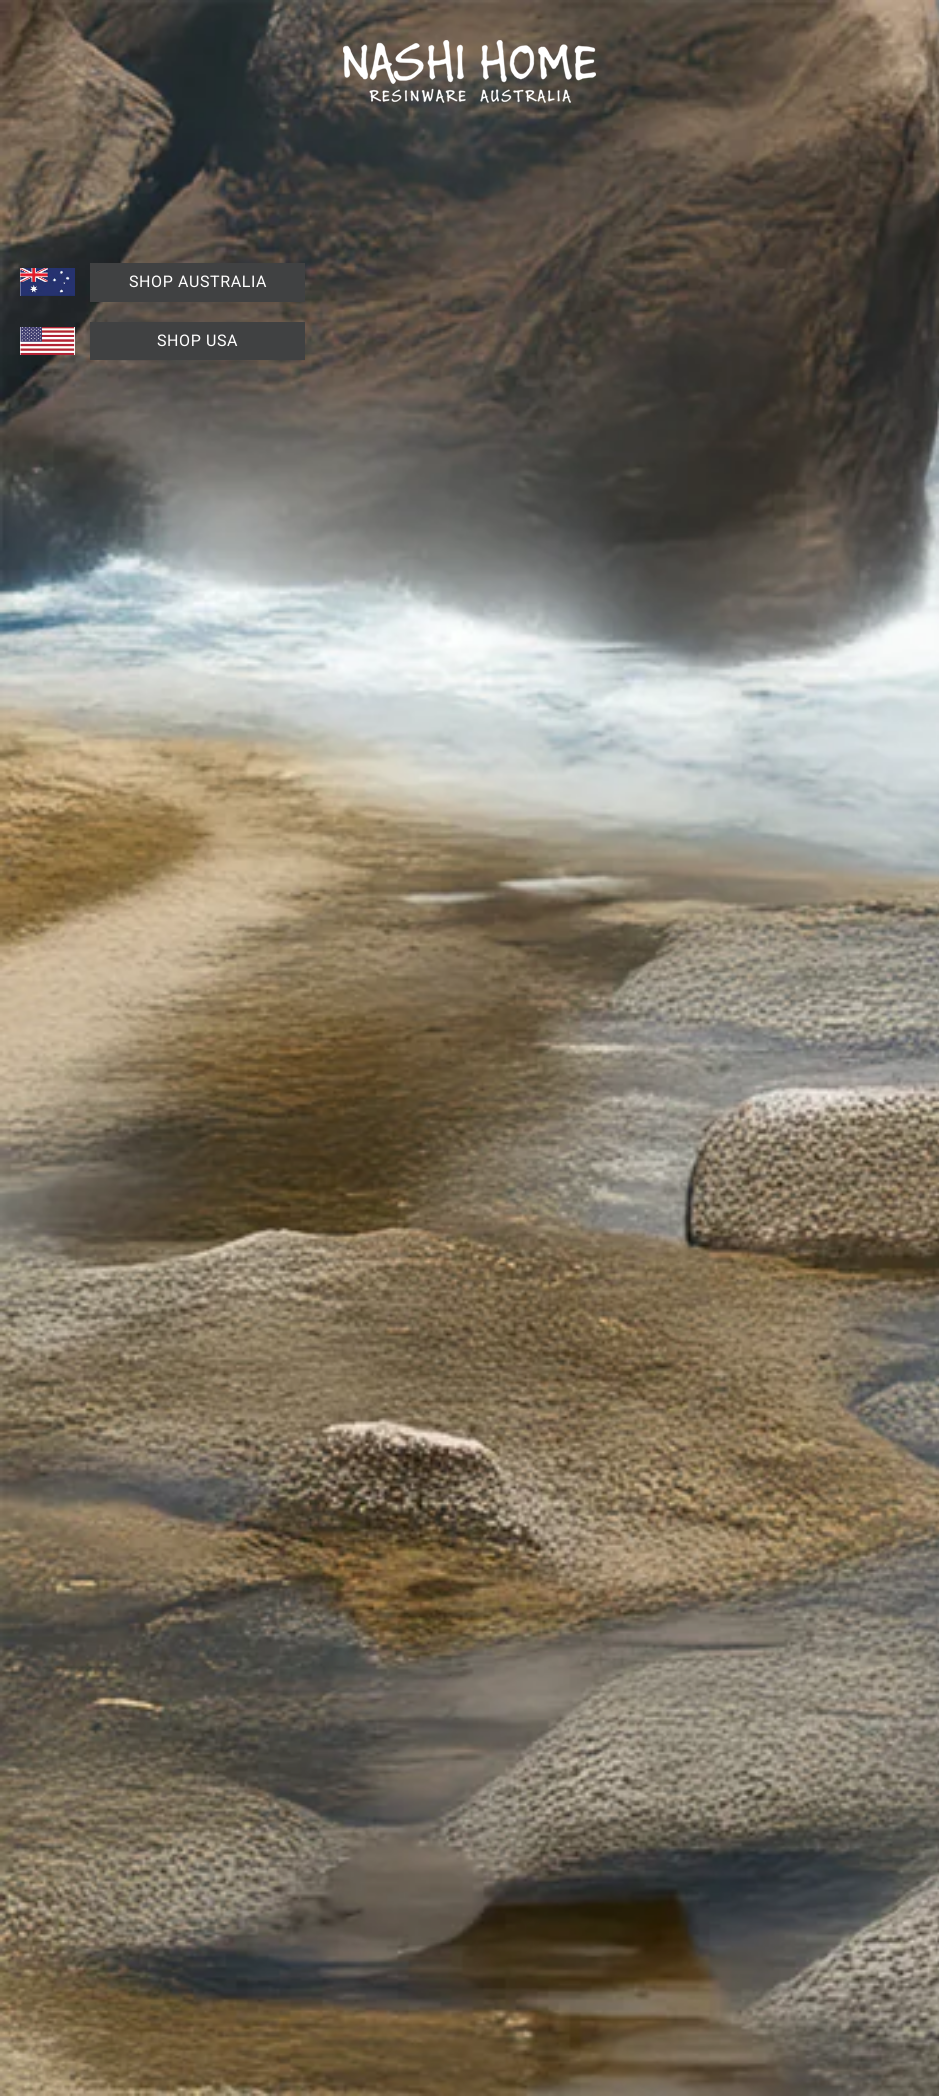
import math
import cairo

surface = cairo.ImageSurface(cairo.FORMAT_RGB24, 939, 2096)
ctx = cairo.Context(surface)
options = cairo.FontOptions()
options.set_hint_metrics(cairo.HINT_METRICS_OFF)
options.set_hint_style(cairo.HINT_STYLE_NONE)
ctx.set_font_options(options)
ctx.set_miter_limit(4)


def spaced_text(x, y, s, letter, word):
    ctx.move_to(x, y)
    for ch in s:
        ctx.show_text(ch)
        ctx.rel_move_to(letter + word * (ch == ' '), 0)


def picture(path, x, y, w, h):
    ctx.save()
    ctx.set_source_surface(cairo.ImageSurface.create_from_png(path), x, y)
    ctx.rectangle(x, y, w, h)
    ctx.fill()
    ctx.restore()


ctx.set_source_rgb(1, 1, 1)
ctx.paint()
picture("img1.png", 0, 0, 939, 2096)
picture("img2.png", 343, 40, 253, 63)
ctx.set_source_rgb(1, 1, 1)
ctx.rectangle(20, 268, 1, 28)
ctx.fill()
picture("img3.png", 20, 268, 55, 28)
ctx.set_source_rgb(0.251, 0.255, 0.259)
ctx.rectangle(90, 263, 215, 39)
ctx.fill()
ctx.select_font_face("Roboto")
ctx.set_font_size(16)
ctx.set_source_rgb(1, 1, 1)
spaced_text(129, 287, "SHOP AUSTRALIA", 0.6, 0)
ctx.rectangle(20, 327, 55, 28)
ctx.fill()
picture("img4.png", 20, 327, 55, 28)
ctx.set_source_rgb(0.251, 0.255, 0.259)
ctx.rectangle(90, 322, 215, 38)
ctx.fill()
ctx.set_source_rgb(1, 1, 1)
spaced_text(157, 346, "SHOP USA", 0.6, 0)
surface.write_to_png("page.png")
